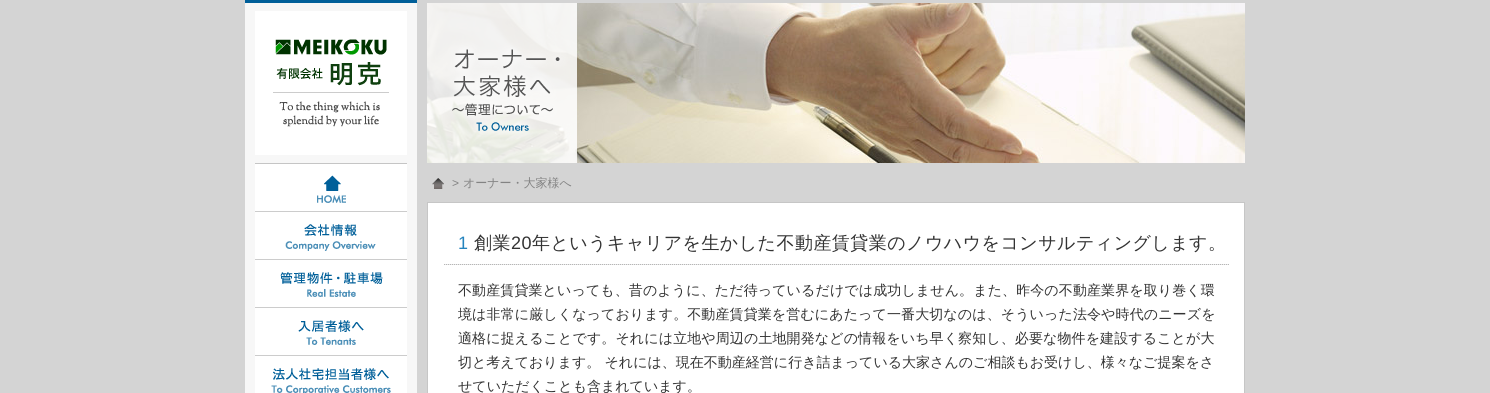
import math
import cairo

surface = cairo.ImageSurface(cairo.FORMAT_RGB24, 1490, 393)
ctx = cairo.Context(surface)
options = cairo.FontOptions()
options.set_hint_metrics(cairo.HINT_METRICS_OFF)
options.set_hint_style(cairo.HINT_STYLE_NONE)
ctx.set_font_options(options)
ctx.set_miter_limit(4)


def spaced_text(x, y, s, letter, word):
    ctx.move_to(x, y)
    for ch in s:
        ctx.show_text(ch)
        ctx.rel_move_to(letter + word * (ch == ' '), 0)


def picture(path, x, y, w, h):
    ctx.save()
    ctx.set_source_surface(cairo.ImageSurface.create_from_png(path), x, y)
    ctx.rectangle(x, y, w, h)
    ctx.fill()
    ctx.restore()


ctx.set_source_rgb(0.831, 0.831, 0.831)
ctx.paint()
ctx.set_source_rgb(0.965, 0.965, 0.965)
ctx.rectangle(245, 3, 172, 390)
ctx.fill()
ctx.set_source_rgb(0, 0.373, 0.6)
ctx.rectangle(245, 0, 172, 3)
ctx.fill()
ctx.set_source_rgb(1, 1, 1)
ctx.rectangle(255, 11, 152, 144)
ctx.fill()
ctx.set_source_rgb(0.8, 0.8, 0.8)
ctx.rectangle(273, 92, 116, 1)
ctx.fill()
picture("img1.png", 275, 39, 112, 47)
picture("img2.png", 279, 101, 101, 26)
ctx.set_source_rgb(0.773, 0.773, 0.773)
ctx.rectangle(255, 163, 152, 1)
ctx.fill()
picture("img3.png", 255, 164, 152, 48)
picture("img4.png", 255, 212, 152, 48)
picture("img5.png", 255, 260, 152, 48)
picture("img6.png", 255, 308, 152, 48)
picture("img7.png", 255, 356, 152, 37)
picture("img8.png", 427, 3, 818, 160)
picture("img9.png", 427, 3, 150, 160)
picture("img10.png", 432, 178, 12, 11)
ctx.select_font_face("Liberation Sans")
ctx.set_font_size(12)
ctx.set_source_rgb(0.514, 0.514, 0.514)
ctx.move_to(452, 187)
ctx.show_text(">")
ctx.select_font_face("WenQuanYi Zen Hei Medium")
ctx.move_to(463, 187)
ctx.show_text("オーナー・大家様へ")
ctx.set_source_rgb(1, 1, 1)
ctx.rectangle(427.5, 202.5, 817, 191)
ctx.fill_preserve()
ctx.set_source_rgb(0.776, 0.776, 0.776)
ctx.set_line_width(1)
ctx.stroke()
picture("img11.png", 444, 264, 785, 1)
ctx.select_font_face("Liberation Sans")
ctx.set_font_size(18)
ctx.set_source_rgb(0.145, 0.518, 0.745)
spaced_text(458, 249, "1", 0.45, 0)
ctx.select_font_face("WenQuanYi Zen Hei Medium")
ctx.set_source_rgb(0.2, 0.2, 0.2)
spaced_text(474, 249, "創業", 0.45, 0)
ctx.select_font_face("Liberation Sans")
spaced_text(511, 249, "20", 0.45, 0)
ctx.select_font_face("WenQuanYi Zen Hei Medium")
spaced_text(532, 249, "年というキャリアを生かした不動産賃貸業のノウハウをコンサルティングします。", 0.45, 0)
ctx.set_font_size(14)
spaced_text(458, 295, "不動産賃貸業といっても、昔のように、ただ待っているだけでは成功しません。また、昨今の不動産業界を取り巻く環", 0.1, 0)
spaced_text(458, 319, "境は非常に厳しくなっております。不動産賃貸業を営むにあたって一番大切なのは、そういった法令や時代のニーズを", 0.1, 0)
spaced_text(458, 343, "適格に捉えることです。それには立地や周辺の土地開発などの情報をいち早く察知し、必要な物件を建設することが大", 0.1, 0)
ctx.move_to(458, 367)
ctx.show_text("切と考えております。 それには、現在不動産経営に行き詰まっている大家さんのご相談もお受けし、様々なご提案をさ")
ctx.move_to(458, 391)
ctx.show_text("せていただくことも含まれています。")
surface.write_to_png("page.png")
